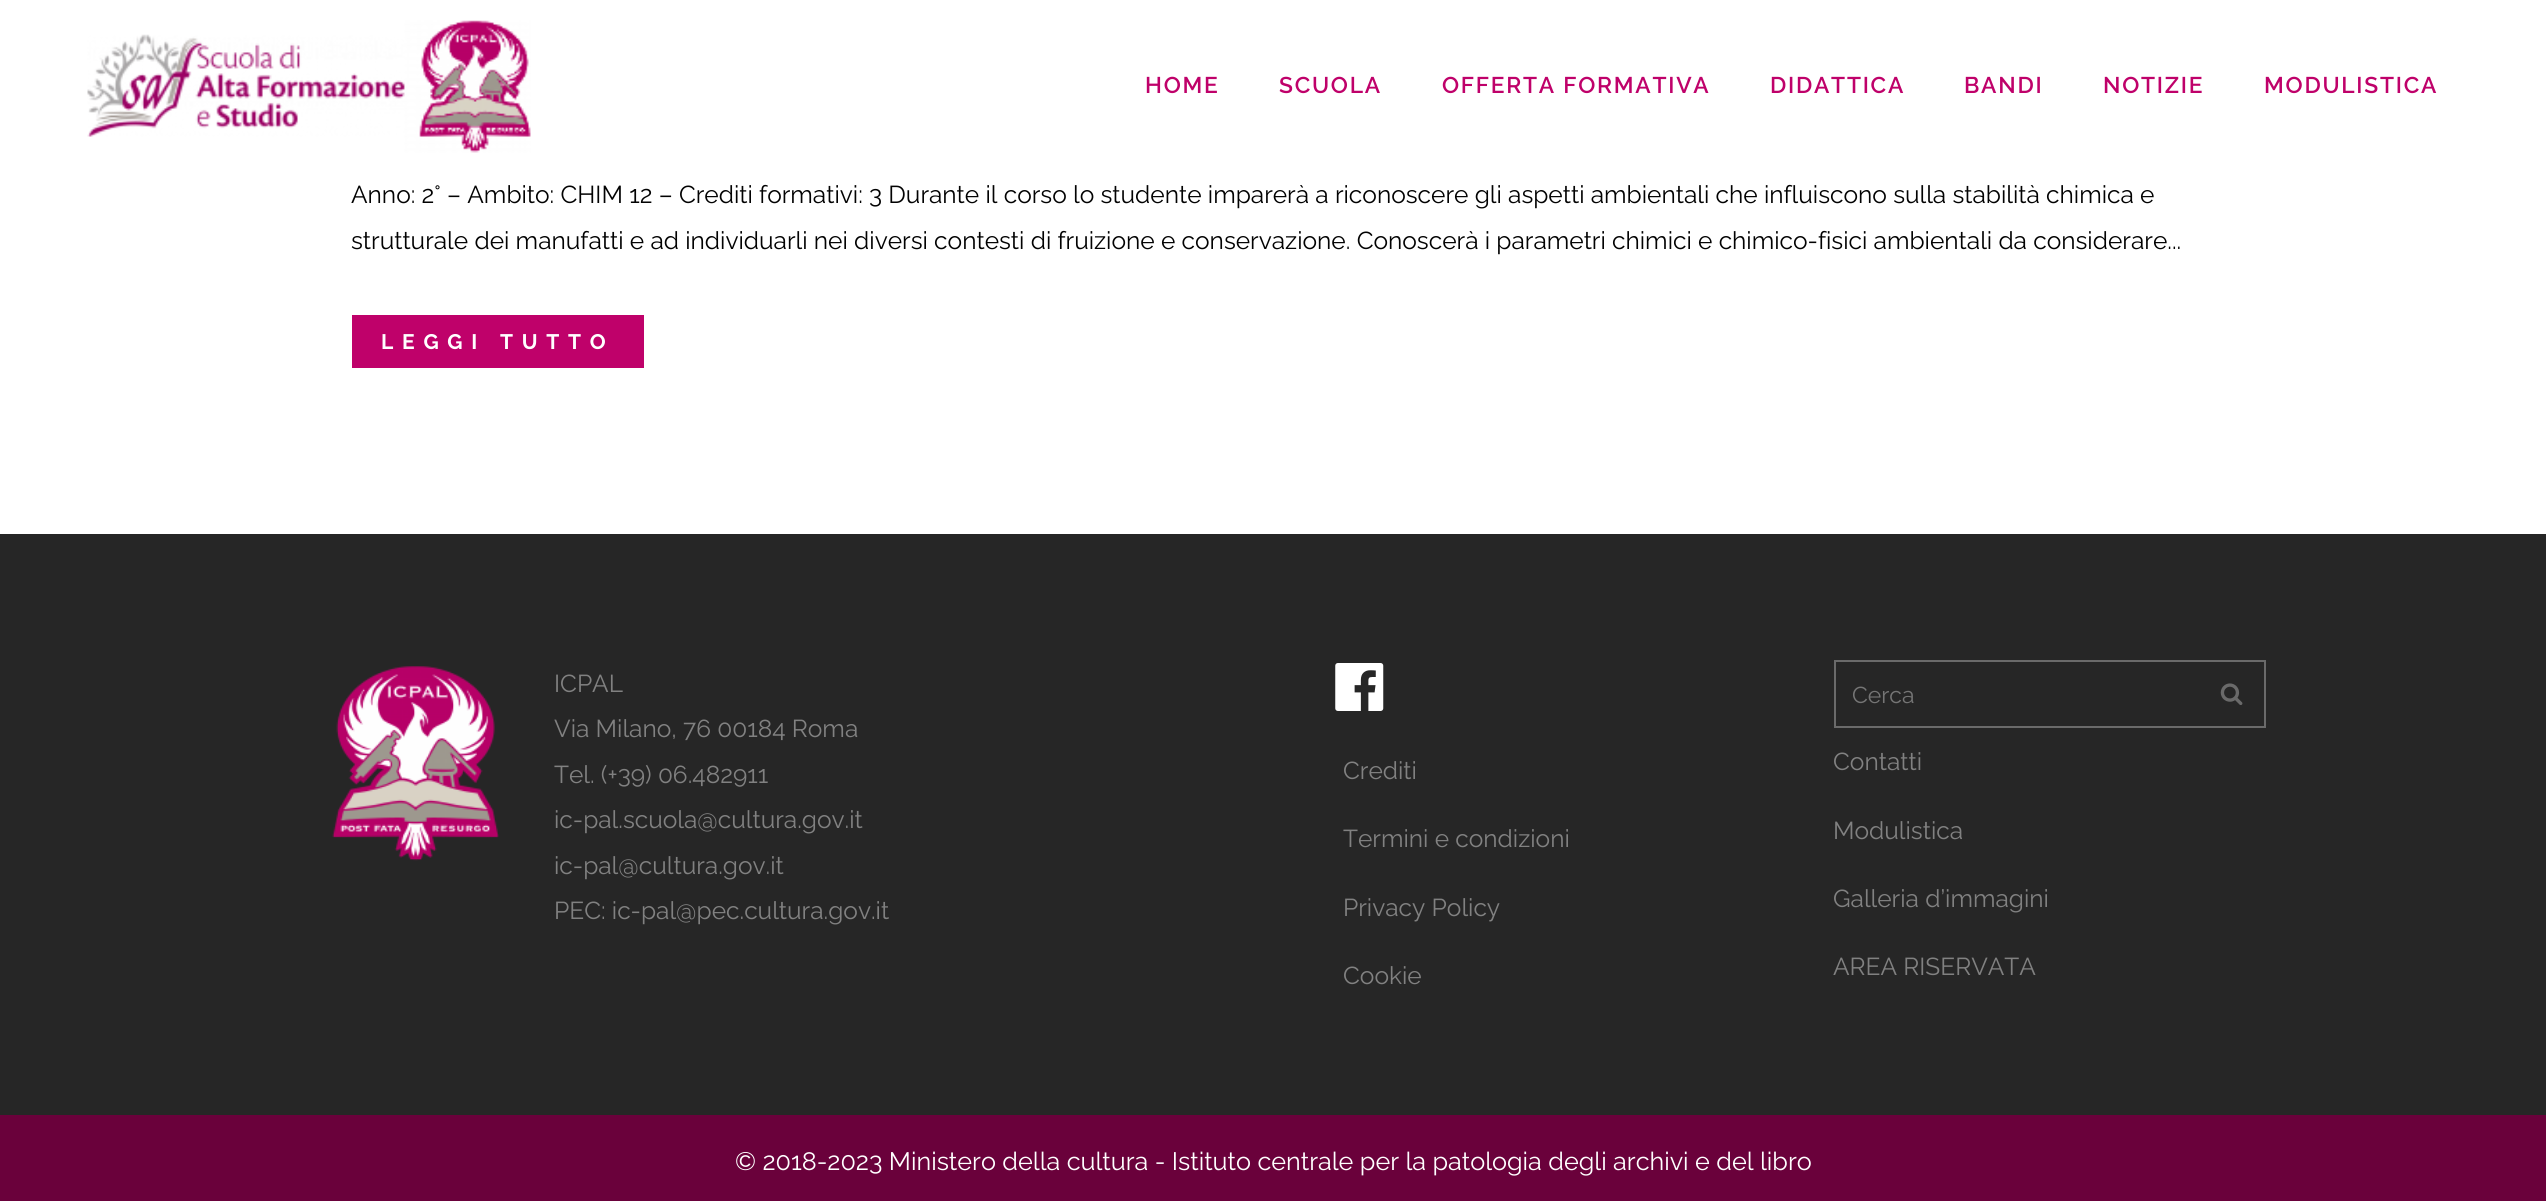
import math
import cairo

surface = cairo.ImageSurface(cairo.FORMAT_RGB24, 2546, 1201)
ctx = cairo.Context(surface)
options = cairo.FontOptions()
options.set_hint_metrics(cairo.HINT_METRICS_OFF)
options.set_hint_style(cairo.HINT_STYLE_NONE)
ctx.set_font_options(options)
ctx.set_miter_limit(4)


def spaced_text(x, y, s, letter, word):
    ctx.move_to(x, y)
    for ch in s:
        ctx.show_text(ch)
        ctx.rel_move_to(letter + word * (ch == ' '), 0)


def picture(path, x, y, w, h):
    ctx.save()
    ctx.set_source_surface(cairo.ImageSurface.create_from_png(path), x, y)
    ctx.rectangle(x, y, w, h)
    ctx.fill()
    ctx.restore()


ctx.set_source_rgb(1, 1, 1)
ctx.paint()
picture("img1.png", 87, 20, 444, 133)
ctx.select_font_face("Raleway SemiBold")
ctx.set_font_size(22.75)
ctx.set_source_rgb(0.749, 0.004, 0.416)
spaced_text(1145, 93, "HOME", 1.75, 0)
spaced_text(1279, 93, "SCUOLA", 1.75, 0)
spaced_text(1442, 93, "OFFERTA FORMATIVA", 1.75, 0)
spaced_text(1770, 93, "DIDATTICA", 1.75, 0)
spaced_text(1964, 93, "BANDI", 1.75, 0)
spaced_text(2103, 93, "NOTIZIE", 1.75, 0)
spaced_text(2264, 93, "MODULISTICA", 1.75, 0)
ctx.select_font_face("Raleway")
ctx.set_font_size(24.5)
ctx.set_source_rgb(0.008, 0.008, 0.008)
ctx.move_to(351, 203)
ctx.show_text("Anno: 2° – Ambito: CHIM 12 – Crediti formativi: 3 Durante il corso lo studente imparerà a riconoscere gli aspetti ambientali che influiscono sulla stabilità chimica e")
ctx.move_to(351, 249)
ctx.show_text("strutturale dei manufatti e ad individuarli nei diversi contesti di fruizione e conservazione. Conoscerà i parametri chimici e chimico-fisici ambientali da considerare...")
ctx.set_source_rgb(0.749, 0.004, 0.416)
ctx.rectangle(352, 315, 292, 53)
ctx.fill()
ctx.select_font_face("Raleway", cairo.FONT_SLANT_NORMAL, cairo.FONT_WEIGHT_BOLD)
ctx.set_font_size(21)
ctx.set_source_rgb(1, 1, 1)
spaced_text(381, 349, "LEGGI TUTTO", 8.75, 0)
ctx.set_source_rgb(0.149, 0.149, 0.149)
ctx.rectangle(0, 534, 2546, 581)
ctx.fill()
picture("img2.png", 332, 666, 167, 195)
ctx.select_font_face("Raleway")
ctx.set_font_size(24.5)
ctx.set_source_rgb(0.506, 0.506, 0.506)
ctx.move_to(554, 692)
ctx.show_text("ICPAL")
ctx.move_to(554, 737)
ctx.show_text("Via Milano, 76 00184 Roma")
ctx.move_to(554, 783)
ctx.show_text("Tel. (+39) 06.482911")
ctx.move_to(554, 828)
ctx.show_text("ic-pal.scuola@cultura.gov.it")
ctx.move_to(554, 874)
ctx.show_text("ic-pal@cultura.gov.it")
ctx.move_to(554, 919)
ctx.show_text("PEC: ic-pal@pec.cultura.gov.it")
picture("img3.png", 1335, 663, 49, 48)
ctx.move_to(1343, 779)
ctx.show_text("Crediti")
ctx.move_to(1343, 847)
ctx.show_text("Termini e condizioni")
ctx.move_to(1343, 916)
ctx.show_text("Privacy Policy")
ctx.move_to(1343, 984)
ctx.show_text("Cookie")
ctx.rectangle(1835, 661, 430, 66)
ctx.set_source_rgb(0.416, 0.416, 0.416)
ctx.stroke()
ctx.set_font_size(23)
ctx.set_source_rgb(0.459, 0.459, 0.459)
ctx.move_to(1852, 703)
ctx.show_text("Cerca")
picture("img4.png", 2220, 683, 23, 22)
ctx.set_font_size(24.5)
ctx.set_source_rgb(0.506, 0.506, 0.506)
ctx.move_to(1833, 770)
ctx.show_text("Contatti")
ctx.move_to(1833, 839)
ctx.show_text("Modulistica")
ctx.move_to(1833, 907)
ctx.show_text("Galleria d’immagini")
ctx.move_to(1833, 975)
ctx.show_text("AREA RISERVATA")
ctx.set_source_rgb(0.416, 0.004, 0.231)
ctx.rectangle(0, 1115, 2546, 86)
ctx.fill()
ctx.set_font_size(25.2)
ctx.set_source_rgb(1, 1, 1)
ctx.move_to(735, 1170)
ctx.show_text("© 2018-2023 Ministero della cultura - Istituto centrale per la patologia degli archivi e del libro")
surface.write_to_png("page.png")
